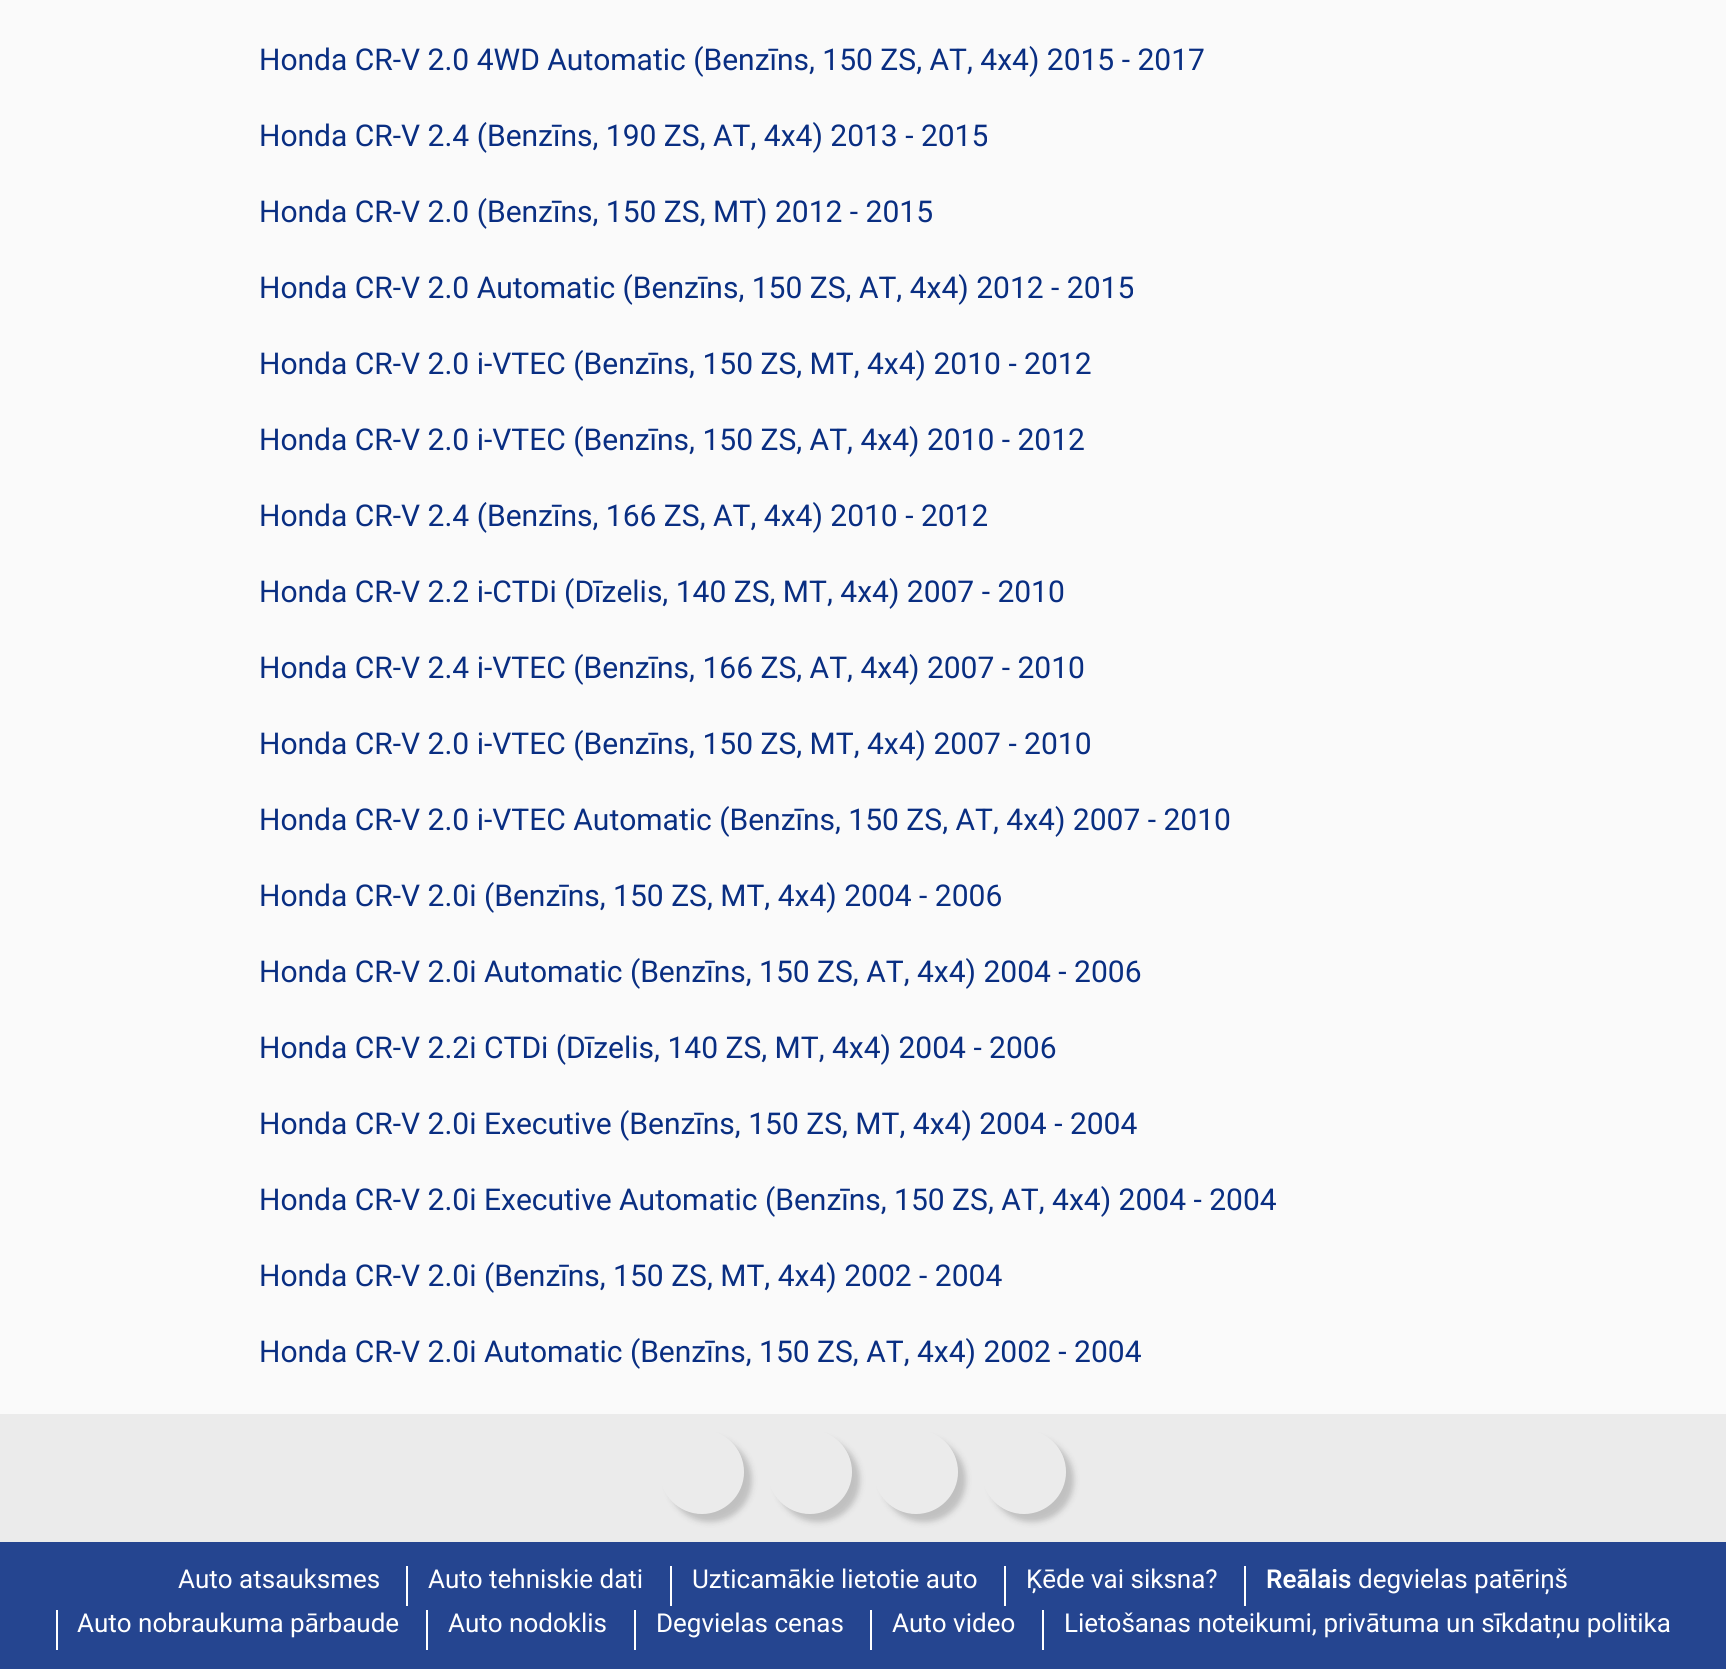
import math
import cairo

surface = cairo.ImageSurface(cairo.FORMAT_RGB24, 1726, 1669)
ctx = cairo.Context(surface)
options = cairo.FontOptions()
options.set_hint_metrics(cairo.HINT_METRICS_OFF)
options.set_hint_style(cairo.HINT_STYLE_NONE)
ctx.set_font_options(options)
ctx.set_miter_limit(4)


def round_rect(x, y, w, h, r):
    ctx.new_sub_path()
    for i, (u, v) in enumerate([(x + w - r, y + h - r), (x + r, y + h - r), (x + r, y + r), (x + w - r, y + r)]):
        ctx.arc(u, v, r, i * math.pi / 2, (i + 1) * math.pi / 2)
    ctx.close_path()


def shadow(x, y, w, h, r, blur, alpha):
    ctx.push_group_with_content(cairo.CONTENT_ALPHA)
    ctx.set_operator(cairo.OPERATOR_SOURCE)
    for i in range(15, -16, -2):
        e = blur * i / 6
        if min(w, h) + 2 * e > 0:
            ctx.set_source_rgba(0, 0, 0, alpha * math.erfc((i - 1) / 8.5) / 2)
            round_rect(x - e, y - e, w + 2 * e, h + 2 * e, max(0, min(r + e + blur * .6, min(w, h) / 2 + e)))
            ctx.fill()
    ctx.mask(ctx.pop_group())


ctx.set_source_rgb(0.98, 0.98, 0.98)
ctx.paint()
ctx.select_font_face("Roboto")
ctx.set_font_size(30)
ctx.set_source_rgb(0.039, 0.18, 0.51)
ctx.move_to(259, 70)
ctx.show_text("Honda CR-V 2.0 4WD Automatic (Benzīns, 150 ZS, AT, 4x4) 2015 - 2017")
ctx.move_to(259, 146)
ctx.show_text("Honda CR-V 2.4 (Benzīns, 190 ZS, AT, 4x4) 2013 - 2015")
ctx.move_to(259, 222)
ctx.show_text("Honda CR-V 2.0 (Benzīns, 150 ZS, MT) 2012 - 2015")
ctx.move_to(259, 298)
ctx.show_text("Honda CR-V 2.0 Automatic (Benzīns, 150 ZS, AT, 4x4) 2012 - 2015")
ctx.move_to(259, 374)
ctx.show_text("Honda CR-V 2.0 i-VTEC (Benzīns, 150 ZS, MT, 4x4) 2010 - 2012")
ctx.move_to(259, 450)
ctx.show_text("Honda CR-V 2.0 i-VTEC (Benzīns, 150 ZS, AT, 4x4) 2010 - 2012")
ctx.move_to(259, 526)
ctx.show_text("Honda CR-V 2.4 (Benzīns, 166 ZS, AT, 4x4) 2010 - 2012")
ctx.move_to(259, 602)
ctx.show_text("Honda CR-V 2.2 i-CTDi (Dīzelis, 140 ZS, MT, 4x4) 2007 - 2010")
ctx.move_to(259, 678)
ctx.show_text("Honda CR-V 2.4 i-VTEC (Benzīns, 166 ZS, AT, 4x4) 2007 - 2010")
ctx.move_to(259, 754)
ctx.show_text("Honda CR-V 2.0 i-VTEC (Benzīns, 150 ZS, MT, 4x4) 2007 - 2010")
ctx.move_to(259, 830)
ctx.show_text("Honda CR-V 2.0 i-VTEC Automatic (Benzīns, 150 ZS, AT, 4x4) 2007 - 2010")
ctx.move_to(259, 906)
ctx.show_text("Honda CR-V 2.0i (Benzīns, 150 ZS, MT, 4x4) 2004 - 2006")
ctx.move_to(259, 982)
ctx.show_text("Honda CR-V 2.0i Automatic (Benzīns, 150 ZS, AT, 4x4) 2004 - 2006")
ctx.move_to(259, 1058)
ctx.show_text("Honda CR-V 2.2i CTDi (Dīzelis, 140 ZS, MT, 4x4) 2004 - 2006")
ctx.move_to(259, 1134)
ctx.show_text("Honda CR-V 2.0i Executive (Benzīns, 150 ZS, MT, 4x4) 2004 - 2004")
ctx.move_to(259, 1210)
ctx.show_text("Honda CR-V 2.0i Executive Automatic (Benzīns, 150 ZS, AT, 4x4) 2004 - 2004")
ctx.move_to(259, 1286)
ctx.show_text("Honda CR-V 2.0i (Benzīns, 150 ZS, MT, 4x4) 2002 - 2004")
ctx.move_to(259, 1362)
ctx.show_text("Honda CR-V 2.0i Automatic (Benzīns, 150 ZS, AT, 4x4) 2002 - 2004")
ctx.set_source_rgb(0.918, 0.918, 0.918)
ctx.rectangle(0, 1414, 1726, 128)
ctx.fill()
ctx.save()
ctx.set_fill_rule(cairo.FILL_RULE_EVEN_ODD)
ctx.new_path()
ctx.move_to(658, 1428)
ctx.line_to(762, 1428)
ctx.line_to(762, 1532)
ctx.line_to(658, 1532)
ctx.close_path()
ctx.move_to(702, 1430)
ctx.curve_to(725, 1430, 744, 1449, 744, 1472)
ctx.curve_to(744, 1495, 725, 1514, 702, 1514)
ctx.curve_to(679, 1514, 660, 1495, 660, 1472)
ctx.curve_to(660, 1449, 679, 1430, 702, 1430)
ctx.close_path()
ctx.clip()
ctx.set_source_rgb(0.078, 0.078, 0.078)
shadow(668, 1438, 84, 84, 42, 3, 0.2)
ctx.restore()
ctx.save()
ctx.set_fill_rule(cairo.FILL_RULE_EVEN_ODD)
ctx.new_path()
ctx.move_to(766, 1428)
ctx.line_to(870, 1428)
ctx.line_to(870, 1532)
ctx.line_to(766, 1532)
ctx.close_path()
ctx.move_to(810, 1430)
ctx.curve_to(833, 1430, 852, 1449, 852, 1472)
ctx.curve_to(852, 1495, 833, 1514, 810, 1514)
ctx.curve_to(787, 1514, 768, 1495, 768, 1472)
ctx.curve_to(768, 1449, 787, 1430, 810, 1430)
ctx.close_path()
ctx.clip()
ctx.set_source_rgb(0.078, 0.078, 0.078)
shadow(776, 1438, 84, 84, 42, 3, 0.2)
ctx.restore()
ctx.save()
ctx.set_fill_rule(cairo.FILL_RULE_EVEN_ODD)
ctx.new_path()
ctx.move_to(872, 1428)
ctx.line_to(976, 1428)
ctx.line_to(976, 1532)
ctx.line_to(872, 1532)
ctx.close_path()
ctx.move_to(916, 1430)
ctx.curve_to(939, 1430, 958, 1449, 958, 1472)
ctx.curve_to(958, 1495, 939, 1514, 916, 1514)
ctx.curve_to(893, 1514, 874, 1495, 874, 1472)
ctx.curve_to(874, 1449, 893, 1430, 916, 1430)
ctx.close_path()
ctx.clip()
ctx.set_source_rgb(0.078, 0.078, 0.078)
shadow(882, 1438, 84, 84, 42, 3, 0.2)
ctx.restore()
ctx.save()
ctx.set_fill_rule(cairo.FILL_RULE_EVEN_ODD)
ctx.new_path()
ctx.move_to(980, 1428)
ctx.line_to(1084, 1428)
ctx.line_to(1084, 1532)
ctx.line_to(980, 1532)
ctx.close_path()
ctx.move_to(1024, 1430)
ctx.curve_to(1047, 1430, 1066, 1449, 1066, 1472)
ctx.curve_to(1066, 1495, 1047, 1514, 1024, 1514)
ctx.curve_to(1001, 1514, 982, 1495, 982, 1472)
ctx.curve_to(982, 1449, 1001, 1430, 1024, 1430)
ctx.close_path()
ctx.clip()
ctx.set_source_rgb(0.078, 0.078, 0.078)
shadow(990, 1438, 84, 84, 42, 3, 0.2)
ctx.restore()
ctx.set_source_rgb(0.145, 0.271, 0.565)
ctx.rectangle(0, 1542, 1726, 127)
ctx.fill()
ctx.set_font_size(26)
ctx.set_source_rgb(1, 1, 1)
ctx.move_to(178, 1588)
ctx.show_text("Auto atsauksmes")
ctx.rectangle(406, 1566, 2, 40)
ctx.fill()
ctx.move_to(428, 1588)
ctx.show_text("Auto tehniskie dati")
ctx.rectangle(670, 1566, 2, 40)
ctx.fill()
ctx.move_to(692, 1588)
ctx.show_text("Uzticamākie lietotie auto")
ctx.rectangle(1004, 1566, 2, 40)
ctx.fill()
ctx.move_to(1026, 1588)
ctx.show_text("Ķēde vai siksna?")
ctx.rectangle(1244, 1566, 2, 40)
ctx.fill()
ctx.select_font_face("Roboto SemiBold")
ctx.move_to(1266, 1588)
ctx.show_text("Reālais")
ctx.select_font_face("Roboto")
ctx.move_to(1358, 1588)
ctx.show_text("degvielas patēriņš")
ctx.rectangle(56, 1610, 2, 40)
ctx.fill()
ctx.move_to(77, 1632)
ctx.show_text("Auto nobraukuma pārbaude")
ctx.rectangle(426, 1610, 2, 40)
ctx.fill()
ctx.move_to(448, 1632)
ctx.show_text("Auto nodoklis")
ctx.rectangle(634, 1610, 2, 40)
ctx.fill()
ctx.move_to(656, 1632)
ctx.show_text("Degvielas cenas")
ctx.rectangle(870, 1610, 2, 40)
ctx.fill()
ctx.move_to(892, 1632)
ctx.show_text("Auto video")
ctx.rectangle(1042, 1610, 2, 40)
ctx.fill()
ctx.move_to(1064, 1632)
ctx.show_text("Lietošanas noteikumi, privātuma un sīkdatņu politika")
surface.write_to_png("page.png")
